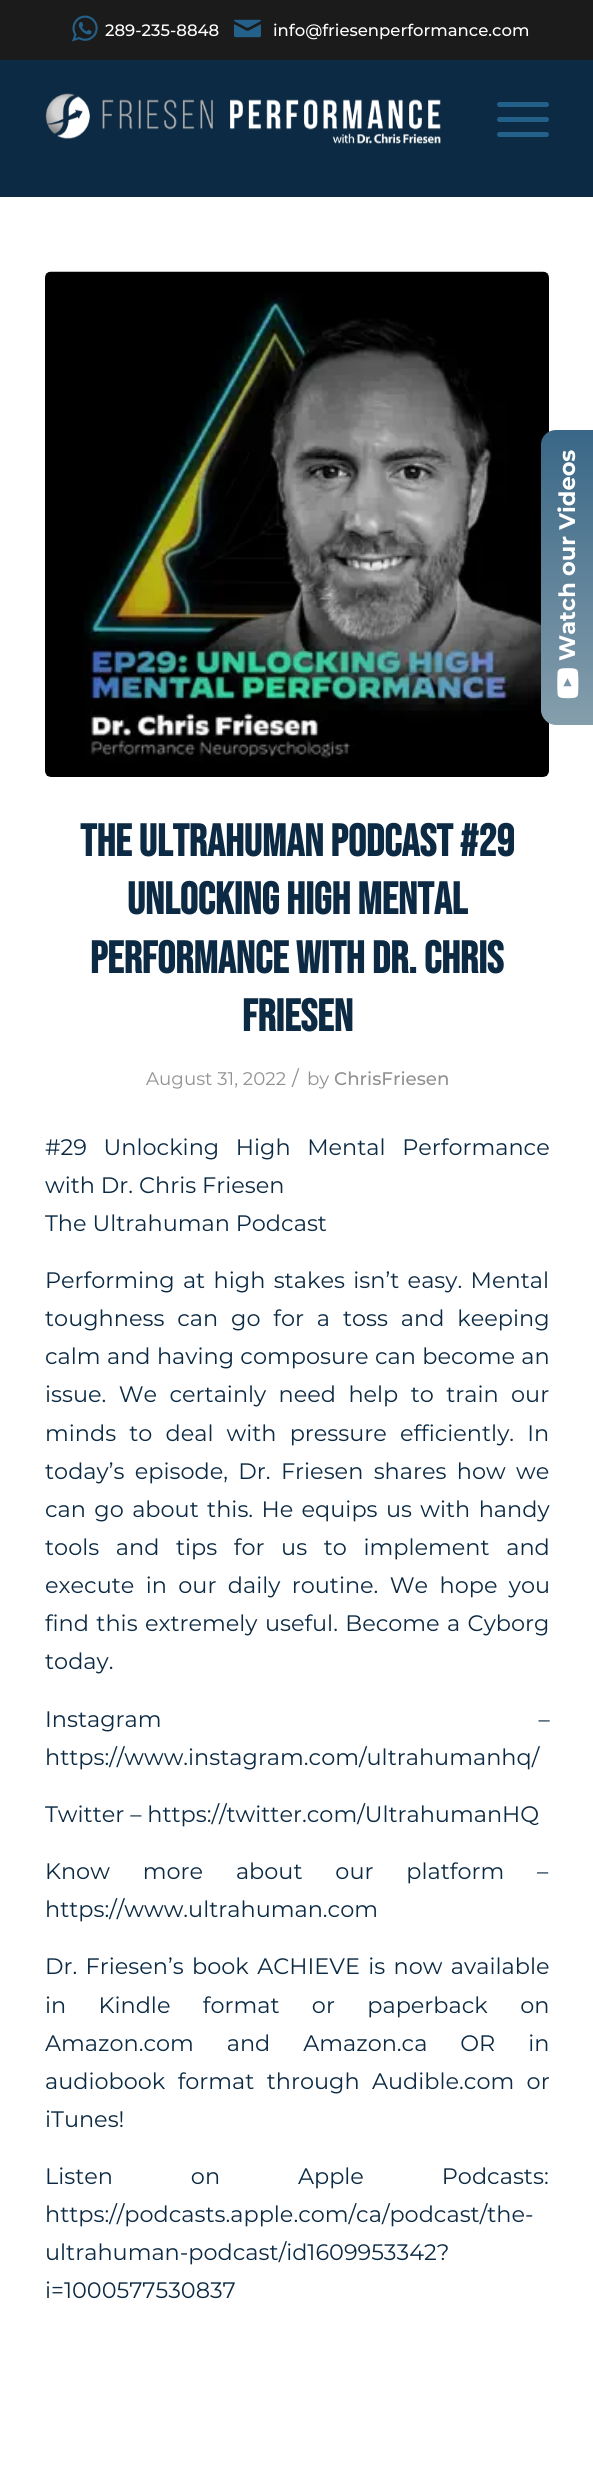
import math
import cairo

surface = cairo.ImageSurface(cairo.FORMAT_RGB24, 593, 2482)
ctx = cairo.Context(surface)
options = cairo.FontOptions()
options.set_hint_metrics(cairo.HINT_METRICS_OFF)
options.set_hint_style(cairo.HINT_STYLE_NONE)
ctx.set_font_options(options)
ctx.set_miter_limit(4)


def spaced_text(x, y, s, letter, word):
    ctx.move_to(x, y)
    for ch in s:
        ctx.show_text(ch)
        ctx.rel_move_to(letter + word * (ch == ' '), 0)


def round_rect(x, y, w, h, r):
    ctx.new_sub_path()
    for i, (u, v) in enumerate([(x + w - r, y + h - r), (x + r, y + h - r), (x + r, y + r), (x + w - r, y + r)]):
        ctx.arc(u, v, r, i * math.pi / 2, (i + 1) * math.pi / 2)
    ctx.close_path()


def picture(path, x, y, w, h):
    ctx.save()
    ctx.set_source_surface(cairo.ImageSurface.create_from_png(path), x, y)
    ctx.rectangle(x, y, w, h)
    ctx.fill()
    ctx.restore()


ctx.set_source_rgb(0.047, 0.165, 0.263)
ctx.paint()
ctx.set_source_rgb(0.106, 0.106, 0.106)
ctx.rectangle(0, 0, 593, 60)
ctx.fill()
picture("img1.png", 72, 15, 26, 27)
ctx.select_font_face("Montserrat Medium")
ctx.set_font_size(16.5)
ctx.set_source_rgb(1, 1, 1)
ctx.move_to(105, 36)
ctx.show_text("289-235-8848")
picture("img2.png", 234, 19, 27, 19)
ctx.move_to(273, 36)
ctx.show_text("info@friesenperformance.com")
picture("img3.png", 45, 93, 396, 51)
ctx.set_source_rgb(0.137, 0.38, 0.541)
round_rect(497, 117, 52, 5, 2.5)
ctx.fill()
round_rect(497, 102, 52, 5, 2.5)
ctx.fill()
round_rect(497, 132, 52, 5, 2.5)
ctx.fill()
ctx.set_source_rgb(1, 1, 1)
ctx.rectangle(0, 197, 593, 2285)
ctx.fill()
picture("img4.png", 45, 271, 504, 506)
ctx.select_font_face("Bebas Neue", cairo.FONT_SLANT_NORMAL, cairo.FONT_WEIGHT_BOLD)
ctx.set_font_size(45)
ctx.set_source_rgb(0.047, 0.165, 0.263)
ctx.move_to(80, 856)
ctx.show_text("The Ultrahuman Podcast #29")
ctx.move_to(127, 914)
ctx.show_text("Unlocking High Mental")
ctx.move_to(90, 973)
ctx.show_text("Performance with Dr. Chris")
ctx.move_to(242, 1031)
ctx.show_text("Friesen")
ctx.select_font_face("Montserrat")
ctx.set_font_size(18.25)
ctx.set_source_rgb(0.569, 0.569, 0.569)
ctx.move_to(146, 1085)
ctx.show_text("August 31, 2022")
ctx.set_font_size(20)
ctx.move_to(292, 1085)
ctx.show_text("/")
ctx.set_font_size(18.25)
ctx.move_to(307, 1085)
ctx.show_text("by")
ctx.select_font_face("Montserrat Medium")
ctx.move_to(334, 1085)
ctx.show_text("ChrisFriesen")
ctx.select_font_face("Montserrat")
ctx.set_font_size(22.4)
ctx.set_source_rgb(0.047, 0.165, 0.263)
spaced_text(45, 1155, "#29 Unlocking High Mental Performance", 0, 10.75)
ctx.move_to(45, 1193)
ctx.show_text("with Dr. Chris Friesen")
ctx.move_to(45, 1231)
ctx.show_text("The Ultrahuman Podcast")
spaced_text(45, 1288, "Performing at high stakes isn’t easy. Mental", 0, 2.5)
spaced_text(45, 1326, "toughness can go for a toss and keeping", 0, 7)
spaced_text(45, 1364, "calm and having composure can become an", 0, 0.5)
spaced_text(45, 1402, "issue. We certainly need help to train our", 0, 6.5)
spaced_text(45, 1441, "minds to deal with pressure efficiently. In", 0, 7.25)
spaced_text(45, 1479, "today’s episode, Dr. Friesen shares how we", 0, 4.5)
spaced_text(45, 1517, "can go about this. He equips us with handy", 0, 2.5)
spaced_text(45, 1555, "tools and tips for us to implement and", 0, 10.75)
spaced_text(45, 1593, "execute in our daily routine. We hope you", 0, 5.5)
spaced_text(45, 1631, "find this extremely useful. Become a Cyborg", 0, 1.5)
ctx.move_to(45, 1669)
ctx.show_text("today.")
spaced_text(45, 1727, "Instagram –", 0, 371)
ctx.move_to(45, 1765)
ctx.show_text("https://www.instagram.com/ultrahumanhq/")
ctx.move_to(45, 1822)
ctx.show_text("Twitter – https://twitter.com/UltrahumanHQ")
spaced_text(45, 1879, "Know more about our platform –", 0, 27)
ctx.move_to(45, 1917)
ctx.show_text("https://www.ultrahuman.com")
spaced_text(45, 1974, "Dr. Friesen’s book ACHIEVE is now available", 0, 2.5)
spaced_text(45, 2013, "in Kindle format or paperback on", 0, 26.5)
spaced_text(45, 2051, "Amazon.com and Amazon.ca OR in", 0, 27)
spaced_text(45, 2089, "audiobook format through Audible.com or", 0, 6.5)
ctx.move_to(45, 2127)
ctx.show_text("iTunes!")
spaced_text(45, 2184, "Listen on Apple Podcasts:", 0, 72)
ctx.move_to(45, 2222)
ctx.show_text("https://podcasts.apple.com/ca/podcast/the-")
ctx.move_to(45, 2260)
ctx.show_text("ultrahuman-podcast/id1609953342?")
ctx.move_to(45, 2298)
ctx.show_text("i=1000577530837")
gradient = cairo.LinearGradient(568, 725, 568, 430)
gradient.add_color_stop_rgba(0, 0.522, 0.62, 0.675, 1)
gradient.add_color_stop_rgba(1, 0.224, 0.404, 0.529, 1)
ctx.set_source(gradient)
ctx.new_path()
ctx.move_to(541, 710)
ctx.line_to(541, 445)
ctx.curve_to(541, 436, 548, 430, 556, 430)
ctx.line_to(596, 430)
ctx.line_to(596, 725)
ctx.line_to(556, 725)
ctx.curve_to(548, 725, 541, 718, 541, 710)
ctx.close_path()
ctx.fill()
ctx.select_font_face("Montserrat", cairo.FONT_SLANT_NORMAL, cairo.FONT_WEIGHT_BOLD)
ctx.set_font_size(22.5)
ctx.set_source_rgb(1, 1, 1)
ctx.save()
ctx.translate(575, 661)
ctx.rotate(-90 * math.pi / 180)
ctx.move_to(0, 0)
ctx.show_text("Watch our Videos")
ctx.restore()
picture("img5.png", 557, 668, 22, 31)
surface.write_to_png("page.png")
